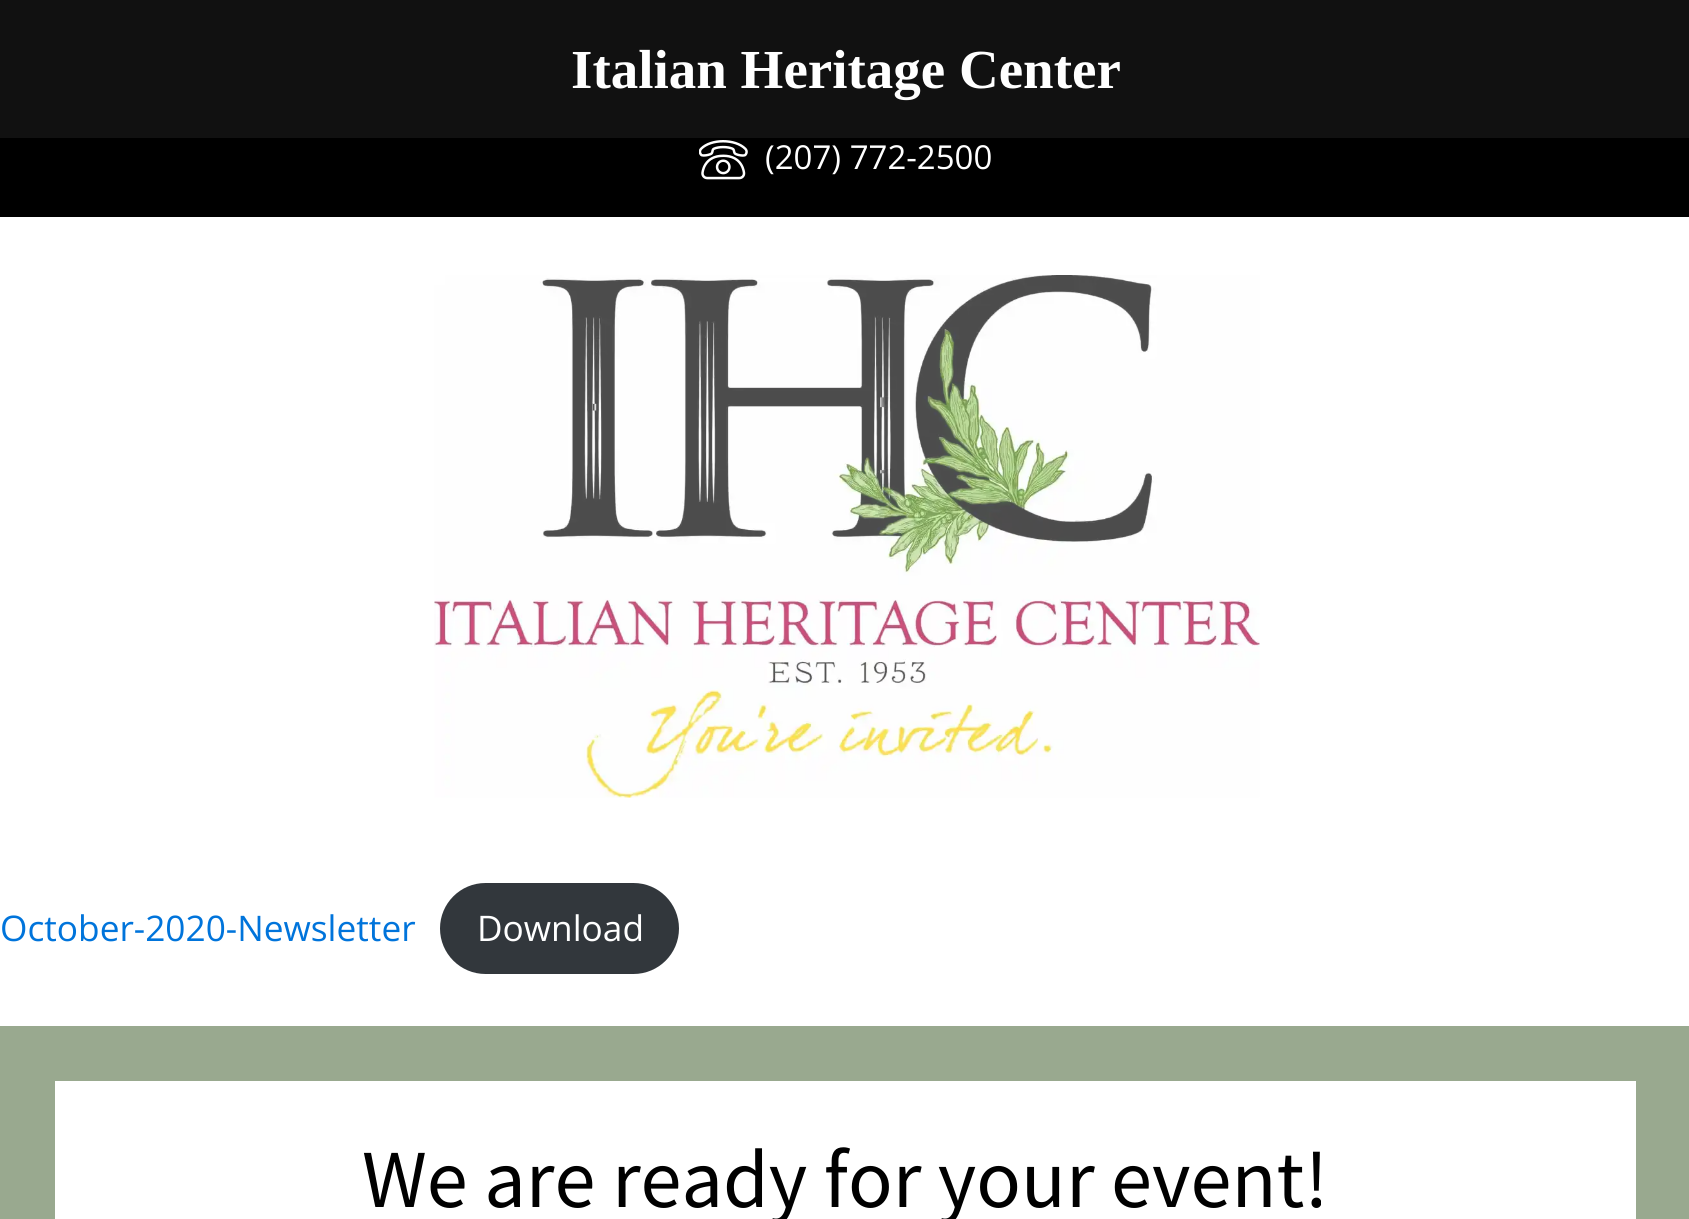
import math
import cairo

surface = cairo.ImageSurface(cairo.FORMAT_RGB24, 1689, 1219)
ctx = cairo.Context(surface)
options = cairo.FontOptions()
options.set_hint_metrics(cairo.HINT_METRICS_OFF)
options.set_hint_style(cairo.HINT_STYLE_NONE)
ctx.set_font_options(options)
ctx.set_miter_limit(4)


def round_rect(x, y, w, h, r):
    ctx.new_sub_path()
    for i, (u, v) in enumerate([(x + w - r, y + h - r), (x + r, y + h - r), (x + r, y + r), (x + w - r, y + r)]):
        ctx.arc(u, v, r, i * math.pi / 2, (i + 1) * math.pi / 2)
    ctx.close_path()


def picture(path, x, y, w, h):
    ctx.save()
    ctx.set_source_surface(cairo.ImageSurface.create_from_png(path), x, y)
    ctx.rectangle(x, y, w, h)
    ctx.fill()
    ctx.restore()


ctx.set_source_rgb(1, 1, 1)
ctx.paint()
ctx.set_source_rgb(0.067, 0.067, 0.067)
ctx.rectangle(0, 0, 1689, 138)
ctx.fill()
ctx.select_font_face("Liberation Serif", cairo.FONT_SLANT_NORMAL, cairo.FONT_WEIGHT_BOLD)
ctx.set_font_size(55)
ctx.set_source_rgb(1, 1, 1)
ctx.move_to(571, 88)
ctx.show_text("Italian Heritage Center")
ctx.set_source_rgb(0, 0, 0)
ctx.rectangle(0, 138, 1689, 79)
ctx.fill()
picture("img1.png", 699, 140, 49, 40)
ctx.select_font_face("Open Sans")
ctx.set_font_size(33)
ctx.set_source_rgb(1, 1, 1)
ctx.move_to(765, 169)
ctx.show_text("(207) 772-2500")
picture("img2.png", 434, 275, 826, 523)
ctx.set_font_size(35.25)
ctx.set_source_rgb(0, 0.455, 0.859)
ctx.move_to(0, 941)
ctx.show_text("October-2020-Newsletter")
ctx.set_source_rgb(0.196, 0.216, 0.235)
round_rect(440, 883, 239, 91, 45.5)
ctx.fill()
ctx.set_source_rgb(1, 1, 1)
ctx.move_to(477, 941)
ctx.show_text("Download")
ctx.set_source_rgb(0.6, 0.663, 0.561)
ctx.rectangle(0, 1026, 1689, 193)
ctx.fill()
ctx.set_source_rgb(1, 1, 1)
ctx.rectangle(55, 1081, 1581, 138)
ctx.fill()
ctx.select_font_face("Source Sans Pro")
ctx.set_font_size(82.5)
ctx.set_source_rgb(0, 0, 0)
ctx.move_to(362, 1207)
ctx.show_text("We are ready for your event!")
surface.write_to_png("page.png")
